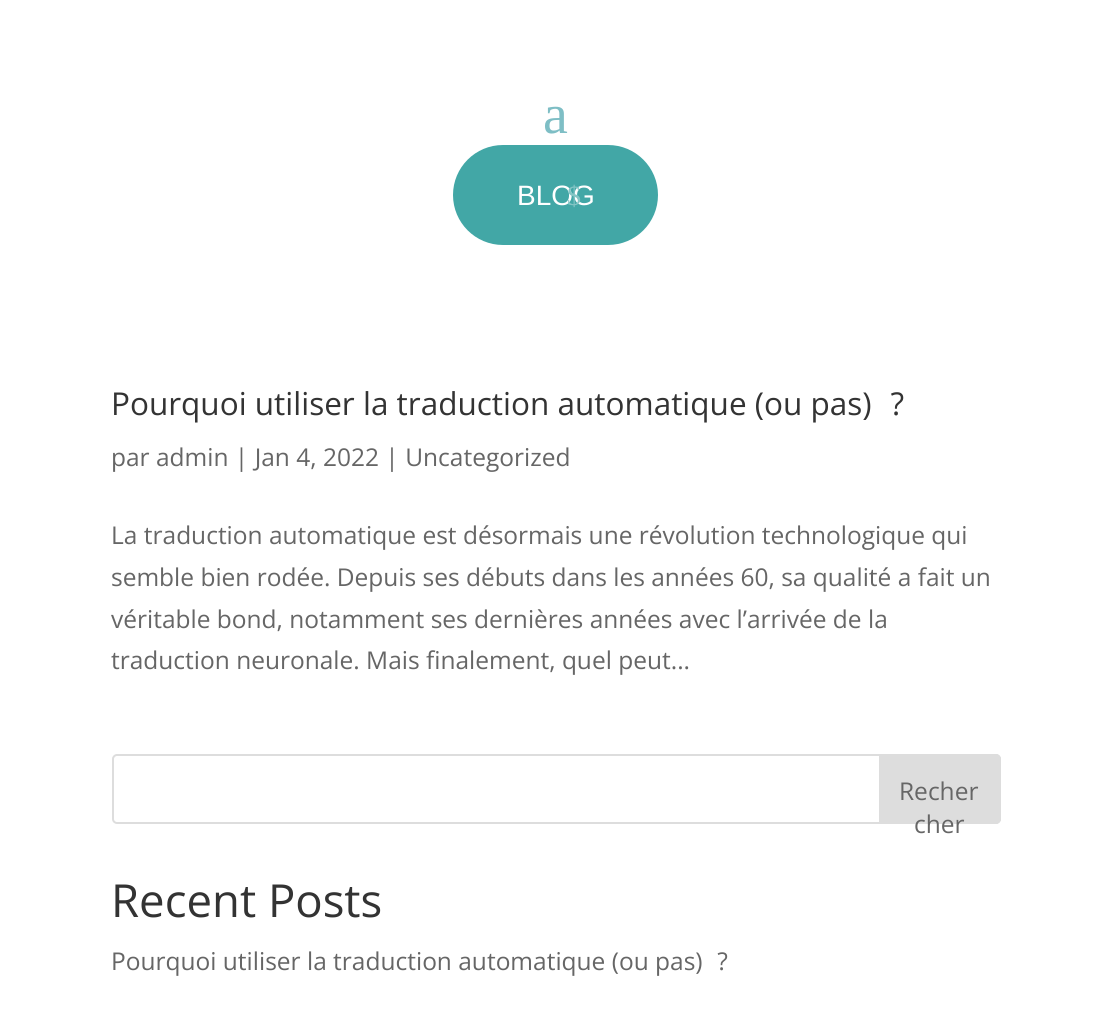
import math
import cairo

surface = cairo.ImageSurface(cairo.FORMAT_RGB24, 1111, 1023)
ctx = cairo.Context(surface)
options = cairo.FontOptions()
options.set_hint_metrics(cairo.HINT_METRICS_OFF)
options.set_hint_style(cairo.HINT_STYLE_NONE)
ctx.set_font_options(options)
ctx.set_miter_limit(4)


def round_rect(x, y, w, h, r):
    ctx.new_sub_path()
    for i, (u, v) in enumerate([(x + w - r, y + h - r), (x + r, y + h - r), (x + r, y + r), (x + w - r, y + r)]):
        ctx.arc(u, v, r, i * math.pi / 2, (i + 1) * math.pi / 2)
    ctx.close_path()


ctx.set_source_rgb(1, 1, 1)
ctx.paint()
ctx.select_font_face("Liberation Serif")
ctx.set_font_size(56)
ctx.set_source_rgb(0.494, 0.745, 0.773)
ctx.move_to(543, 133)
ctx.show_text("a")
ctx.set_source_rgb(0.259, 0.655, 0.651)
round_rect(453, 145, 205, 100, 50)
ctx.fill()
ctx.select_font_face("Liberation Sans")
ctx.set_font_size(28)
ctx.set_source_rgb(1, 1, 1)
ctx.move_to(517, 205)
ctx.show_text("BLOG")
ctx.select_font_face("Liberation Serif")
ctx.set_source_rgb(0.518, 0.773, 0.773)
ctx.move_to(567, 205)
ctx.show_text("$")
ctx.select_font_face("Open Sans")
ctx.set_font_size(31.5)
ctx.set_source_rgb(0.2, 0.2, 0.2)
ctx.move_to(111, 415)
ctx.show_text("Pourquoi utiliser la traduction automatique (ou pas) ?")
ctx.set_font_size(24.5)
ctx.set_source_rgb(0.4, 0.4, 0.4)
ctx.move_to(111, 466)
ctx.show_text("par admin | Jan 4, 2022 | Uncategorized")
ctx.move_to(111, 544)
ctx.show_text("La traduction automatique est désormais une révolution technologique qui")
ctx.move_to(111, 586)
ctx.show_text("semble bien rodée. Depuis ses débuts dans les années 60, sa qualité a fait un")
ctx.move_to(111, 628)
ctx.show_text("véritable bond, notamment ses dernières années avec l’arrivée de la")
ctx.move_to(111, 669)
ctx.show_text("traduction neuronale. Mais finalement, quel peut...")
round_rect(113, 755, 887, 68, 4)
ctx.set_source_rgb(0.867, 0.867, 0.867)
ctx.stroke()
ctx.new_path()
ctx.move_to(880, 755)
ctx.line_to(996, 755)
ctx.curve_to(998, 755, 1000, 757, 1000, 759)
ctx.line_to(1000, 819)
ctx.curve_to(1000, 821, 998, 823, 996, 823)
ctx.line_to(880, 823)
ctx.close_path()
ctx.fill_preserve()
ctx.stroke()
ctx.set_source_rgb(0.4, 0.4, 0.4)
ctx.move_to(899, 800)
ctx.show_text("Recher")
ctx.move_to(914, 833)
ctx.show_text("cher")
ctx.set_font_size(45.5)
ctx.set_source_rgb(0.2, 0.2, 0.2)
ctx.move_to(111, 917)
ctx.show_text("Recent Posts")
ctx.set_font_size(24.5)
ctx.set_source_rgb(0.4, 0.4, 0.4)
ctx.move_to(111, 970)
ctx.show_text("Pourquoi utiliser la traduction automatique (ou pas) ?")
surface.write_to_png("page.png")
